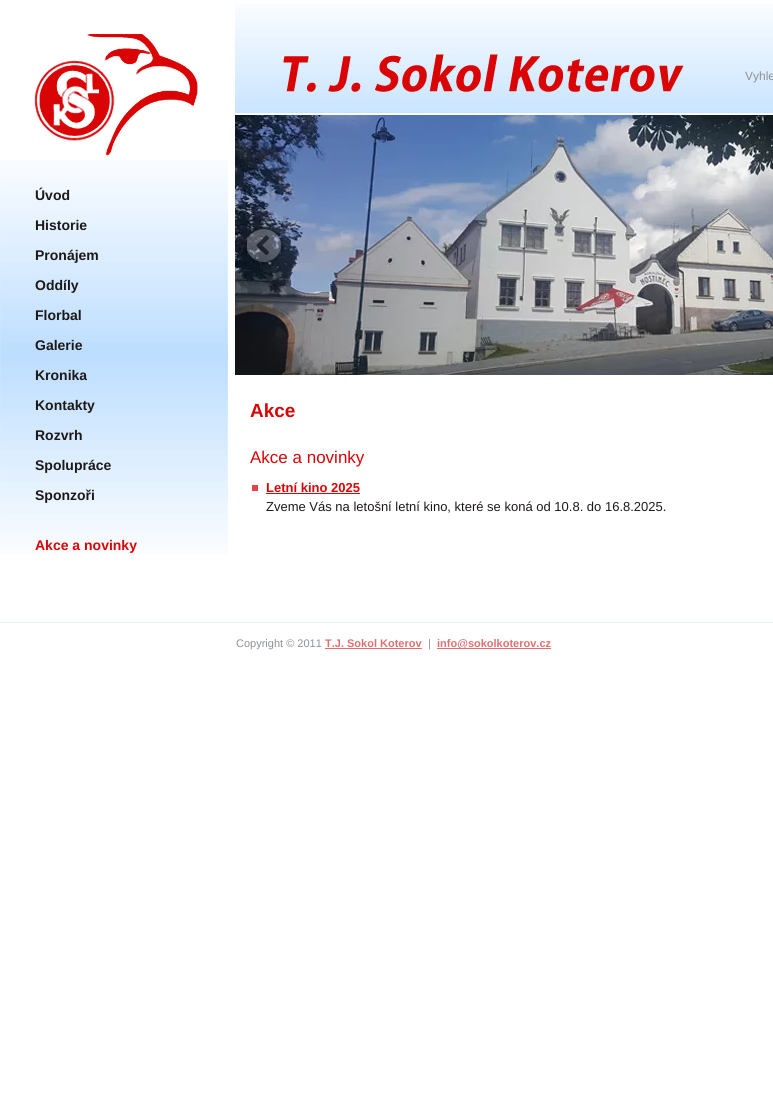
import math
import cairo

surface = cairo.ImageSurface(cairo.FORMAT_RGB24, 773, 1115)
ctx = cairo.Context(surface)
options = cairo.FontOptions()
options.set_hint_metrics(cairo.HINT_METRICS_OFF)
options.set_hint_style(cairo.HINT_STYLE_NONE)
ctx.set_font_options(options)
ctx.set_miter_limit(4)


def picture(path, x, y, w, h):
    ctx.save()
    ctx.set_source_surface(cairo.ImageSurface.create_from_png(path), x, y)
    ctx.rectangle(x, y, w, h)
    ctx.fill()
    ctx.restore()


ctx.set_source_rgb(1, 1, 1)
ctx.paint()
picture("img1.png", 0, 160, 228, 394)
picture("img2.png", 33, 34, 165, 123)
ctx.select_font_face("Liberation Sans", cairo.FONT_SLANT_NORMAL, cairo.FONT_WEIGHT_BOLD)
ctx.set_font_size(14)
ctx.set_source_rgb(0.114, 0.098, 0.098)
ctx.move_to(35, 200)
ctx.show_text("Úvod")
ctx.move_to(35, 230)
ctx.show_text("Historie")
ctx.move_to(35, 260)
ctx.show_text("Pronájem")
ctx.move_to(35, 290)
ctx.show_text("Oddíly")
ctx.move_to(35, 320)
ctx.show_text("Florbal")
ctx.move_to(35, 350)
ctx.show_text("Galerie")
ctx.move_to(35, 380)
ctx.show_text("Kronika")
ctx.move_to(35, 410)
ctx.show_text("Kontakty")
ctx.move_to(35, 440)
ctx.show_text("Rozvrh")
ctx.move_to(35, 470)
ctx.show_text("Spolupráce")
ctx.move_to(35, 500)
ctx.show_text("Sponzoři")
ctx.set_source_rgb(0.851, 0.016, 0.02)
ctx.move_to(35, 550)
ctx.show_text("Akce a novinky")
picture("img3.png", 235, 4, 538, 111)
ctx.select_font_face("Liberation Sans")
ctx.set_font_size(12)
ctx.set_source_rgb(0.557, 0.569, 0.584)
ctx.move_to(745, 80)
ctx.show_text("Vyhle")
picture("img4.png", 235, 115, 538, 260)
picture("img5.png", 243, 226, 42, 39)
ctx.select_font_face("Liberation Sans", cairo.FONT_SLANT_NORMAL, cairo.FONT_WEIGHT_BOLD)
ctx.set_font_size(19)
ctx.set_source_rgb(0.851, 0.016, 0.02)
ctx.move_to(250, 417)
ctx.show_text("Akce")
ctx.select_font_face("Liberation Sans")
ctx.set_font_size(17)
ctx.move_to(250, 463)
ctx.show_text("Akce a novinky")
ctx.set_source_rgb(0.89, 0.263, 0.267)
ctx.rectangle(252, 485, 6, 6)
ctx.fill()
ctx.select_font_face("Liberation Sans", cairo.FONT_SLANT_NORMAL, cairo.FONT_WEIGHT_BOLD)
ctx.set_font_size(13)
ctx.set_source_rgb(0.851, 0.016, 0.02)
ctx.move_to(266, 492)
ctx.show_text("Letní kino 2025")
ctx.rectangle(266, 493, 94, 1)
ctx.fill()
ctx.select_font_face("Liberation Sans")
ctx.set_source_rgb(0.114, 0.098, 0.098)
ctx.move_to(266, 511)
ctx.show_text("Zveme Vás na letošní letní kino, které se koná od 10.8. do 16.8.2025.")
ctx.set_source_rgb(0.906, 0.953, 1)
ctx.rectangle(0, 622, 773, 1)
ctx.fill()
ctx.set_font_size(11)
ctx.set_source_rgb(0.557, 0.569, 0.584)
ctx.move_to(236, 647)
ctx.show_text("Copyright © 2011")
ctx.select_font_face("Liberation Sans", cairo.FONT_SLANT_NORMAL, cairo.FONT_WEIGHT_BOLD)
ctx.set_source_rgb(0.875, 0.435, 0.443)
ctx.move_to(325, 647)
ctx.show_text("T.J. Sokol Koterov")
ctx.rectangle(325, 648, 97, 1)
ctx.fill()
ctx.select_font_face("Liberation Sans")
ctx.set_source_rgb(0.557, 0.569, 0.584)
ctx.move_to(428, 647)
ctx.show_text("|")
ctx.set_source_rgb(0.875, 0.435, 0.443)
ctx.rectangle(437, 648, 114, 1)
ctx.fill()
ctx.select_font_face("Liberation Sans", cairo.FONT_SLANT_NORMAL, cairo.FONT_WEIGHT_BOLD)
ctx.move_to(437, 647)
ctx.show_text("info@sokolkoterov.cz")
surface.write_to_png("page.png")
